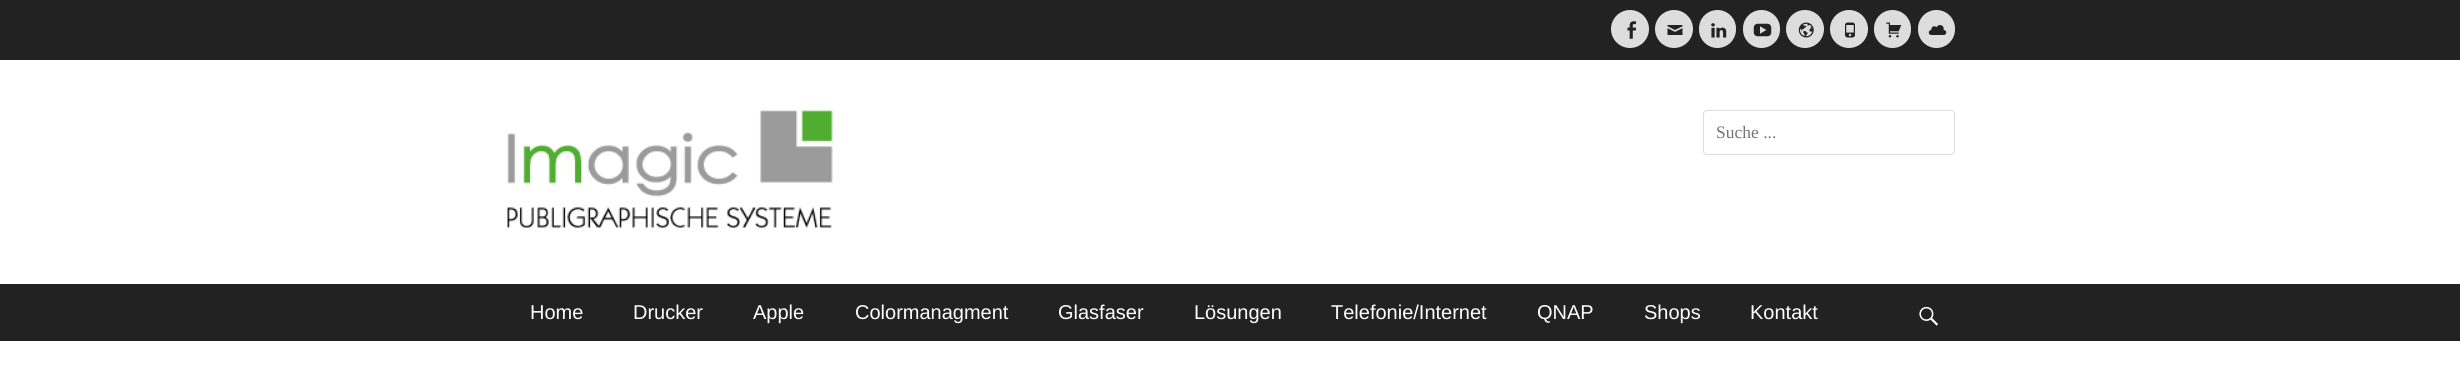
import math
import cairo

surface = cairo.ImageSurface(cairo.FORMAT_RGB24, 2460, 366)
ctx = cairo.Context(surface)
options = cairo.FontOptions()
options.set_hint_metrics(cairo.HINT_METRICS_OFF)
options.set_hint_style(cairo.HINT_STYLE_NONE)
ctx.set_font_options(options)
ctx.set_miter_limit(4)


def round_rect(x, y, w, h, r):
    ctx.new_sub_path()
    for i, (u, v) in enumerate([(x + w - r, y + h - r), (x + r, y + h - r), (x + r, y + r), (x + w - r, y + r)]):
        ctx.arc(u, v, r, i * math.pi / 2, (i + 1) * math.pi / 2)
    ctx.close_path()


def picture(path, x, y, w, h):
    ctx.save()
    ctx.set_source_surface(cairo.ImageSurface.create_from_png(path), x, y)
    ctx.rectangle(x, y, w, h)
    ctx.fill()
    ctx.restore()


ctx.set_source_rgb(0.133, 0.133, 0.133)
ctx.paint()
ctx.set_source_rgb(0.867, 0.867, 0.867)
ctx.arc(1630, 29, 19, 0, 2 * math.pi)
ctx.fill()
picture("img1.png", 1627, 21, 9, 18)
ctx.arc(1674, 29, 19, 0, 2 * math.pi)
ctx.fill()
picture("img2.png", 1667, 25, 16, 10)
round_rect(1699, 10, 37, 38, 18.5)
ctx.fill()
picture("img3.png", 1711, 23, 16, 15)
round_rect(1743, 10, 37, 38, 18.5)
ctx.fill()
picture("img4.png", 1753, 23, 19, 14)
ctx.arc(1805, 29, 19, 0, 2 * math.pi)
ctx.fill()
picture("img5.png", 1798, 22, 16, 16)
ctx.arc(1849, 29, 19, 0, 2 * math.pi)
ctx.fill()
picture("img6.png", 1845, 22, 10, 16)
round_rect(1874, 10, 37, 38, 18.5)
ctx.fill()
picture("img7.png", 1886, 22, 16, 16)
round_rect(1918, 10, 37, 38, 18.5)
ctx.fill()
picture("img8.png", 1928, 25, 19, 10)
ctx.set_source_rgb(1, 1, 1)
ctx.rectangle(0, 60, 2460, 224)
ctx.fill()
picture("img9.png", 507, 110, 326, 118)
round_rect(1703.5, 110.5, 251, 44, 3.5)
ctx.set_source_rgb(0.867, 0.867, 0.867)
ctx.set_line_width(1)
ctx.stroke()
ctx.select_font_face("Liberation Serif")
ctx.set_font_size(17.5)
ctx.set_source_rgb(0.459, 0.459, 0.459)
ctx.move_to(1716, 138)
ctx.show_text("Suche ...")
ctx.select_font_face("Liberation Sans")
ctx.set_font_size(20)
ctx.set_source_rgb(1, 1, 1)
ctx.move_to(530, 319)
ctx.show_text("Home")
ctx.move_to(633, 319)
ctx.show_text("Drucker")
ctx.move_to(753, 319)
ctx.show_text("Apple")
ctx.move_to(855, 319)
ctx.show_text("Colormanagment")
ctx.move_to(1058, 319)
ctx.show_text("Glasfaser")
ctx.move_to(1194, 319)
ctx.show_text("Lösungen")
ctx.move_to(1331, 319)
ctx.show_text("Telefonie/Internet")
ctx.move_to(1537, 319)
ctx.show_text("QNAP")
ctx.move_to(1644, 319)
ctx.show_text("Shops")
ctx.move_to(1750, 319)
ctx.show_text("Kontakt")
picture("img10.png", 1919, 306, 19, 20)
ctx.rectangle(0, 341, 2460, 25)
ctx.fill()
surface.write_to_png("page.png")
